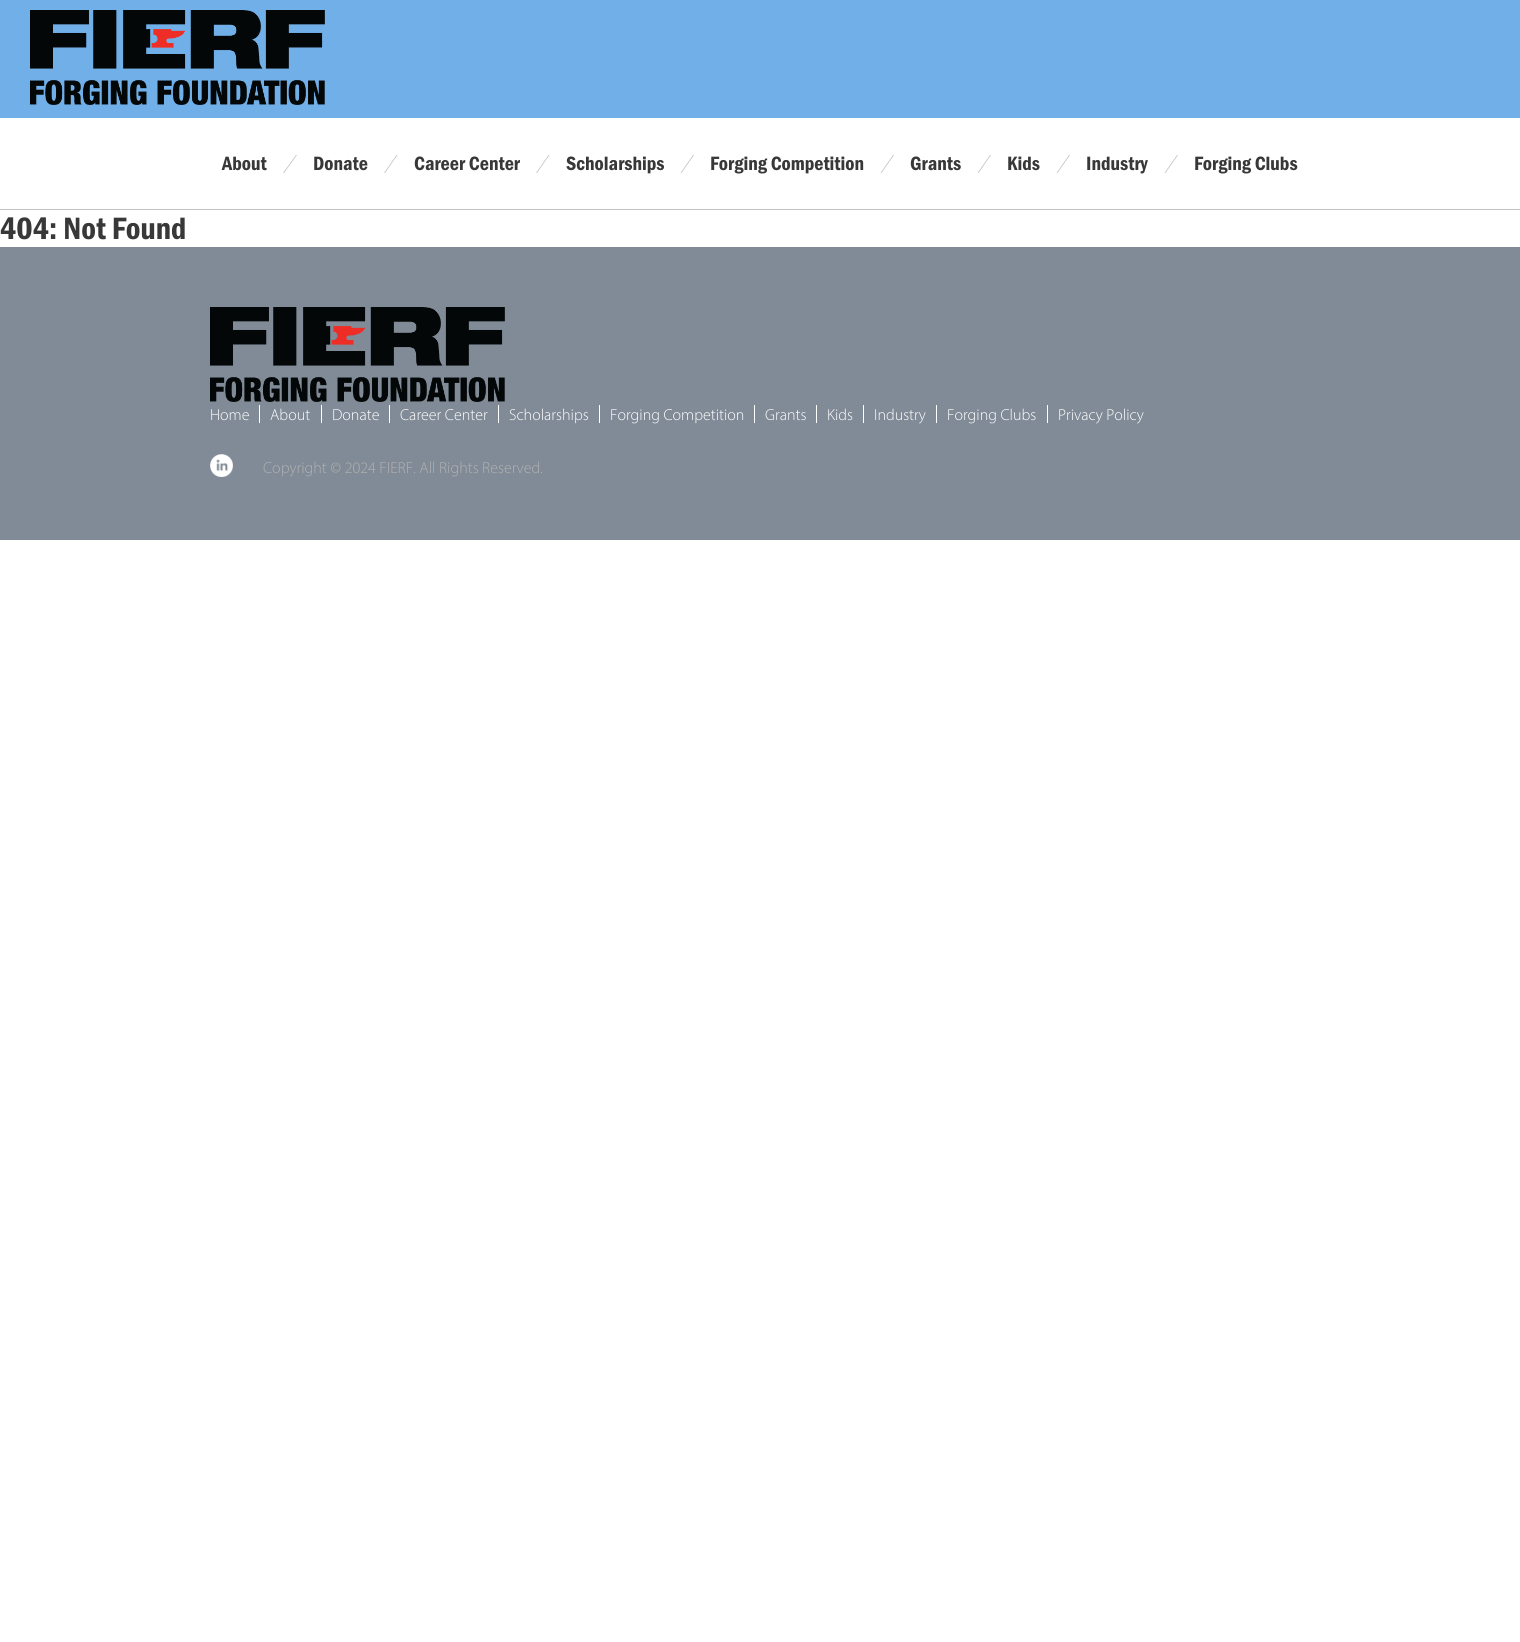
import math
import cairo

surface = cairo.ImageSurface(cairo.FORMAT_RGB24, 1520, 1642)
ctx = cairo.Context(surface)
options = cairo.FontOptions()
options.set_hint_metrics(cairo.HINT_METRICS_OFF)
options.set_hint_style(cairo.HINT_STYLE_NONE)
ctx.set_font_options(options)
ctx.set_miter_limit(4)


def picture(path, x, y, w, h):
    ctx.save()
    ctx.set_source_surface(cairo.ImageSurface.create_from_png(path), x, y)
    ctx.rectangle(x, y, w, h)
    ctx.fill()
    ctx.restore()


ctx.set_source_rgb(1, 1, 1)
ctx.paint()
ctx.set_source_rgb(0.439, 0.686, 0.906)
ctx.rectangle(0, 0, 1520, 118)
ctx.fill()
picture("img1.png", 30, 10, 295, 95)
ctx.set_source_rgb(0.765, 0.765, 0.765)
ctx.rectangle(0, 209, 1520, 1)
ctx.fill()
ctx.select_font_face("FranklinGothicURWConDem")
ctx.set_font_size(20)
ctx.set_source_rgb(0.22, 0.22, 0.22)
ctx.move_to(222, 170)
ctx.show_text("About")
ctx.set_source_rgb(0.765, 0.765, 0.765)
ctx.new_path()
ctx.move_to(296, 155)
ctx.line_to(297, 155)
ctx.line_to(284, 173)
ctx.line_to(283, 173)
ctx.close_path()
ctx.fill()
ctx.set_source_rgb(0.22, 0.22, 0.22)
ctx.move_to(313, 170)
ctx.show_text("Donate")
ctx.set_source_rgb(0.765, 0.765, 0.765)
ctx.new_path()
ctx.move_to(396.5, 155)
ctx.line_to(397.5, 155)
ctx.line_to(385, 173)
ctx.line_to(384, 173)
ctx.close_path()
ctx.fill()
ctx.set_source_rgb(0.22, 0.22, 0.22)
ctx.move_to(414, 170)
ctx.show_text("Career Center")
ctx.set_source_rgb(0.765, 0.765, 0.765)
ctx.new_path()
ctx.move_to(548.5, 155)
ctx.line_to(549.5, 155)
ctx.line_to(537, 173)
ctx.line_to(536, 173)
ctx.close_path()
ctx.fill()
ctx.set_source_rgb(0.22, 0.22, 0.22)
ctx.move_to(566, 170)
ctx.show_text("Scholarships")
ctx.set_source_rgb(0.765, 0.765, 0.765)
ctx.new_path()
ctx.move_to(693, 155)
ctx.line_to(694, 155)
ctx.line_to(681.5, 173)
ctx.line_to(680.5, 173)
ctx.close_path()
ctx.fill()
ctx.set_source_rgb(0.22, 0.22, 0.22)
ctx.move_to(710, 170)
ctx.show_text("Forging Competition")
ctx.set_source_rgb(0.765, 0.765, 0.765)
ctx.new_path()
ctx.move_to(893, 155)
ctx.line_to(894, 155)
ctx.line_to(881.5, 173)
ctx.line_to(880.5, 173)
ctx.close_path()
ctx.fill()
ctx.set_source_rgb(0.22, 0.22, 0.22)
ctx.move_to(910, 170)
ctx.show_text("Grants")
ctx.set_source_rgb(0.765, 0.765, 0.765)
ctx.new_path()
ctx.move_to(990, 155)
ctx.line_to(991, 155)
ctx.line_to(978.5, 173)
ctx.line_to(977.5, 173)
ctx.close_path()
ctx.fill()
ctx.set_source_rgb(0.22, 0.22, 0.22)
ctx.move_to(1007, 170)
ctx.show_text("Kids")
ctx.set_source_rgb(0.765, 0.765, 0.765)
ctx.new_path()
ctx.move_to(1069, 155)
ctx.line_to(1070, 155)
ctx.line_to(1057.5, 173)
ctx.line_to(1056.5, 173)
ctx.close_path()
ctx.fill()
ctx.set_source_rgb(0.22, 0.22, 0.22)
ctx.move_to(1086, 170)
ctx.show_text("Industry")
ctx.set_source_rgb(0.765, 0.765, 0.765)
ctx.new_path()
ctx.move_to(1177, 155)
ctx.line_to(1178, 155)
ctx.line_to(1165.5, 173)
ctx.line_to(1164.5, 173)
ctx.close_path()
ctx.fill()
ctx.set_source_rgb(0.22, 0.22, 0.22)
ctx.move_to(1194, 170)
ctx.show_text("Forging Clubs")
ctx.set_font_size(32)
ctx.move_to(0, 239)
ctx.show_text("404: Not Found")
ctx.set_source_rgb(0.502, 0.545, 0.592)
ctx.rectangle(0, 247, 1520, 293)
ctx.fill()
picture("img2.png", 210, 307, 295, 95)
ctx.select_font_face("Myriad Light")
ctx.set_font_size(16)
ctx.set_source_rgb(1, 1, 1)
ctx.move_to(210, 420)
ctx.show_text("Home")
ctx.rectangle(259, 405, 1, 18)
ctx.fill()
ctx.move_to(270, 420)
ctx.show_text("About")
ctx.rectangle(321, 405, 1, 18)
ctx.fill()
ctx.move_to(332, 420)
ctx.show_text("Donate")
ctx.rectangle(389, 405, 1, 18)
ctx.fill()
ctx.move_to(400, 420)
ctx.show_text("Career Center")
ctx.rectangle(498, 405, 1, 18)
ctx.fill()
ctx.move_to(509, 420)
ctx.show_text("Scholarships")
ctx.rectangle(599, 405, 1, 18)
ctx.fill()
ctx.move_to(610, 420)
ctx.show_text("Forging Competition")
ctx.rectangle(754, 405, 1, 18)
ctx.fill()
ctx.move_to(765, 420)
ctx.show_text("Grants")
ctx.rectangle(816, 405, 1, 18)
ctx.fill()
ctx.move_to(827, 420)
ctx.show_text("Kids")
ctx.rectangle(863, 405, 1, 18)
ctx.fill()
ctx.move_to(874, 420)
ctx.show_text("Industry")
ctx.rectangle(936, 405, 1, 18)
ctx.fill()
ctx.move_to(947, 420)
ctx.show_text("Forging Clubs")
ctx.rectangle(1047, 405, 1, 18)
ctx.fill()
ctx.move_to(1058, 420)
ctx.show_text("Privacy Policy")
picture("img3.png", 210, 454, 23, 23)
ctx.set_source_rgb(0.694, 0.694, 0.694)
ctx.move_to(263, 473)
ctx.show_text("Copyright © 2024 FIERF. All Rights Reserved.")
surface.write_to_png("page.png")
